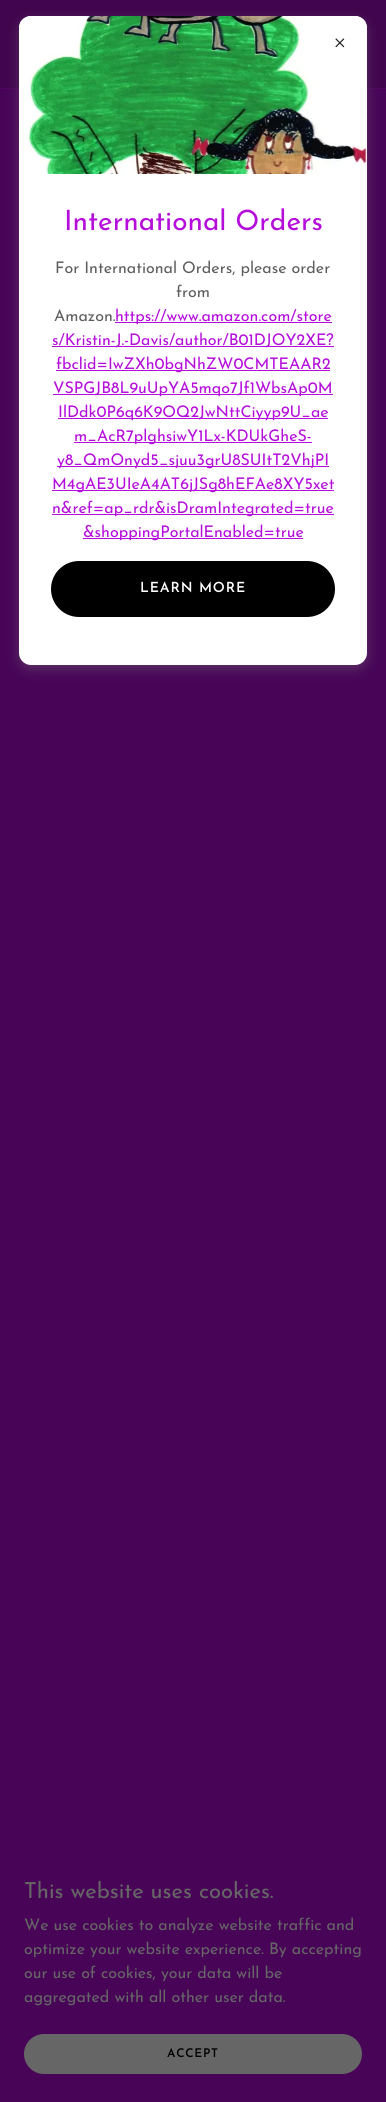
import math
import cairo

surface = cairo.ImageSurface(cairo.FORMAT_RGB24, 386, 2102)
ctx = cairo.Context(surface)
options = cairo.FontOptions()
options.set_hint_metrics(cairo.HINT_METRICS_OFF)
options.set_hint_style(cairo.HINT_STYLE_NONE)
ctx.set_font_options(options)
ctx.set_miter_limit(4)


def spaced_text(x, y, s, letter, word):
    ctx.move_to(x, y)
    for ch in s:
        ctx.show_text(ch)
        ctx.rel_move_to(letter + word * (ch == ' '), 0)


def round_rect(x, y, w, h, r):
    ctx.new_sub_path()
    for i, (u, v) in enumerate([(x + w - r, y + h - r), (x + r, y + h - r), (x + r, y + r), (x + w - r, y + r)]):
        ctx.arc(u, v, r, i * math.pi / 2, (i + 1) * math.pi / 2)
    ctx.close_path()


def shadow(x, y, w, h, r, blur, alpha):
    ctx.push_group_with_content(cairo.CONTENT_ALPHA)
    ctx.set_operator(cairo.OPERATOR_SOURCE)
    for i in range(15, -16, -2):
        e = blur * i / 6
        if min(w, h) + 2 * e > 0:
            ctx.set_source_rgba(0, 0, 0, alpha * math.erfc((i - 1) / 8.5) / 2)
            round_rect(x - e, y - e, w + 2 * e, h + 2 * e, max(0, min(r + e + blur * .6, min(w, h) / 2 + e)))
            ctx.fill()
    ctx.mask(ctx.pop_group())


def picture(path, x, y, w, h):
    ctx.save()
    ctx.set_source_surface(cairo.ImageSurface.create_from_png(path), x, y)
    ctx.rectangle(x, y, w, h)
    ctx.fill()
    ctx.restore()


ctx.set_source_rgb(0.282, 0.02, 0.345)
ctx.paint()
ctx.set_source_rgb(0.255, 0.016, 0.306)
ctx.rectangle(0, 0, 386, 88)
ctx.fill()
ctx.set_source_rgb(0.314, 0.024, 0.38)
ctx.rectangle(0, 88, 386, 1)
ctx.fill()
ctx.set_source_rgb(0.459, 0.459, 0.459)
shadow(19, 20, 348, 649, 12, 6, 0.4)
ctx.set_source_rgb(1, 1, 1)
round_rect(19, 16, 348, 649, 12)
ctx.fill()
picture("img2.png", 19, 16, 348, 158)
picture("img1.png", 335, 38, 10, 10)
ctx.select_font_face("Josefin Sans")
ctx.set_font_size(28)
ctx.set_source_rgb(0.71, 0.051, 0.859)
ctx.move_to(64, 230)
ctx.show_text("International Orders")
ctx.set_font_size(16)
ctx.set_source_rgb(0.369, 0.369, 0.369)
ctx.move_to(55, 273)
ctx.show_text("For International Orders, please order")
ctx.move_to(176, 297)
ctx.show_text("from")
ctx.move_to(54, 321)
ctx.show_text("Amazon.")
ctx.set_source_rgb(0.71, 0.051, 0.859)
ctx.rectangle(115, 322, 217, 1)
ctx.fill()
ctx.move_to(115, 321)
ctx.show_text("https://www.amazon.com/store")
ctx.rectangle(52, 346, 282, 1)
ctx.fill()
ctx.move_to(52, 345)
ctx.show_text("s/Kristin-J.-Davis/author/B01DJOY2XE?")
ctx.rectangle(56, 370, 274, 1)
ctx.fill()
ctx.move_to(56, 369)
ctx.show_text("fbclid=IwZXh0bgNhZW0CMTEAAR2")
ctx.rectangle(53, 394, 280, 1)
ctx.fill()
ctx.move_to(53, 393)
ctx.show_text("VSPGJB8L9uUpYA5mqo7Jf1WbsAp0M")
ctx.rectangle(58, 418, 270, 1)
ctx.fill()
ctx.move_to(58, 417)
ctx.show_text("IlDdk0P6q6K9OQ2JwNttCiyyp9U_ae")
ctx.rectangle(74, 442, 238, 1)
ctx.fill()
ctx.move_to(74, 441)
ctx.show_text("m_AcR7plghsiwY1Lx-KDUkGheS-")
ctx.rectangle(57, 466, 272, 1)
ctx.fill()
ctx.move_to(57, 465)
ctx.show_text("y8_QmOnyd5_sjuu3grU8SUItT2VhjPI")
ctx.rectangle(52, 490, 282, 1)
ctx.fill()
ctx.move_to(52, 489)
ctx.show_text("M4gAE3UIeA4AT6jJSg8hEFAe8XY5xet")
ctx.rectangle(52, 514, 282, 1)
ctx.fill()
ctx.move_to(52, 513)
ctx.show_text("n&ref=ap_rdr&isDramIntegrated=true")
ctx.rectangle(83, 538, 220, 1)
ctx.fill()
ctx.move_to(83, 537)
ctx.show_text("&shoppingPortalEnabled=true")
ctx.set_source_rgb(0, 0, 0)
round_rect(51, 561, 284, 56, 28)
ctx.fill()
ctx.select_font_face("Josefin Sans SemiBold")
ctx.set_font_size(14)
ctx.set_source_rgb(1, 1, 1)
spaced_text(140, 592, "LEARN MORE", 0.9, 0)
ctx.select_font_face("Josefin Sans")
ctx.set_font_size(22)
ctx.set_source_rgb(0.4, 0.4, 0.4)
ctx.move_to(24, 1898)
ctx.show_text("This website uses cookies.")
ctx.set_font_size(16)
ctx.move_to(24, 1930)
ctx.show_text("We use cookies to analyze website traffic and")
ctx.move_to(24, 1954)
ctx.show_text("optimize your website experience. By accepting")
ctx.move_to(24, 1978)
ctx.show_text("our use of cookies, your data will be")
ctx.move_to(24, 2002)
ctx.show_text("aggregated with all other user data.")
round_rect(24, 2034, 338, 40, 20)
ctx.fill()
ctx.select_font_face("Josefin Sans SemiBold")
ctx.set_font_size(12)
ctx.set_source_rgb(0, 0, 0)
spaced_text(167, 2057, "ACCEPT", 0.75, 0)
surface.write_to_png("page.png")
